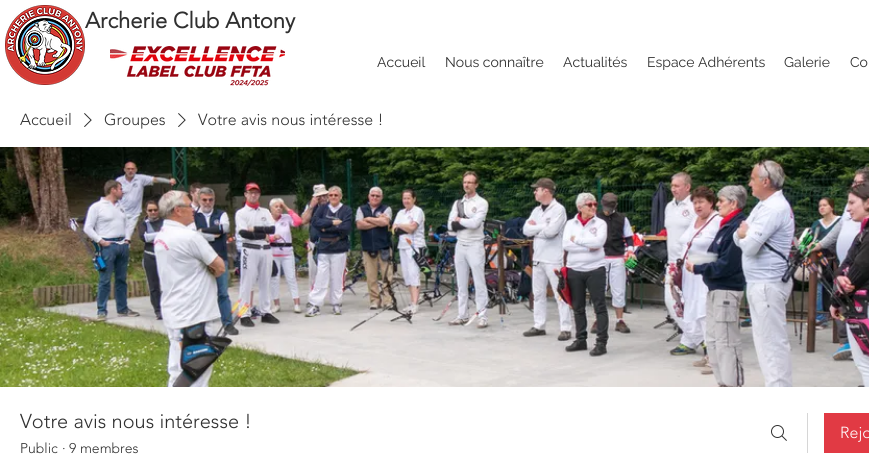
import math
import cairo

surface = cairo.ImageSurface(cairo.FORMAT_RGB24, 869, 475)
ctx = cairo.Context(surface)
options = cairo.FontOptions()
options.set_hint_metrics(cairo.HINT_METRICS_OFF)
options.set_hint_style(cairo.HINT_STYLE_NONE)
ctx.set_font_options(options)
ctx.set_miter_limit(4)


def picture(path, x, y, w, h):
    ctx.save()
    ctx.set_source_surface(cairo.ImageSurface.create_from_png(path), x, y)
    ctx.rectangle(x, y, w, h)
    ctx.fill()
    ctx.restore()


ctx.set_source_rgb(1, 1, 1)
ctx.paint()
picture("img1.png", 5, 5, 80, 80)
ctx.select_font_face("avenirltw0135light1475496", cairo.FONT_SLANT_NORMAL, cairo.FONT_WEIGHT_BOLD)
ctx.set_font_size(22)
ctx.set_source_rgb(0.188, 0.188, 0.188)
ctx.move_to(85, 28)
ctx.show_text("Archerie Club Antony")
picture("img2.png", 110, 46, 175, 40)
ctx.select_font_face("Raleway")
ctx.set_font_size(14)
ctx.move_to(377, 67)
ctx.show_text("Accueil")
ctx.move_to(445, 67)
ctx.show_text("Nous connaître")
ctx.move_to(563, 67)
ctx.show_text("Actualités")
ctx.move_to(647, 67)
ctx.show_text("Espace Adhérents")
ctx.move_to(784, 67)
ctx.show_text("Galerie")
ctx.move_to(850, 67)
ctx.show_text("Co")
ctx.select_font_face("avenirltw0135light1475496 Light")
ctx.set_font_size(16)
ctx.move_to(20, 125)
ctx.show_text("Accueil")
picture("img3.png", 84, 113, 8, 14)
ctx.move_to(104, 125)
ctx.show_text("Groupes")
picture("img3.png", 178, 113, 8, 14)
ctx.move_to(198, 125)
ctx.show_text("Votre avis nous intéresse !")
picture("img4.png", 0, 147, 869, 240)
ctx.set_font_size(20)
ctx.move_to(20, 428)
ctx.show_text("Votre avis nous intéresse !")
ctx.set_font_size(14)
ctx.move_to(20, 453)
ctx.show_text("Public")
ctx.move_to(62, 453)
ctx.show_text("·")
ctx.move_to(69, 453)
ctx.show_text("9 membres")
picture("img5.png", 771, 425, 16, 16)
ctx.set_source_rgb(0.839, 0.839, 0.839)
ctx.rectangle(807, 413, 1, 40)
ctx.fill()
ctx.set_source_rgb(0.882, 0.227, 0.267)
ctx.rectangle(824, 413, 45, 40)
ctx.fill()
ctx.set_font_size(16)
ctx.set_source_rgb(1, 1, 1)
ctx.move_to(840, 438)
ctx.show_text("Rejo")
surface.write_to_png("page.png")
